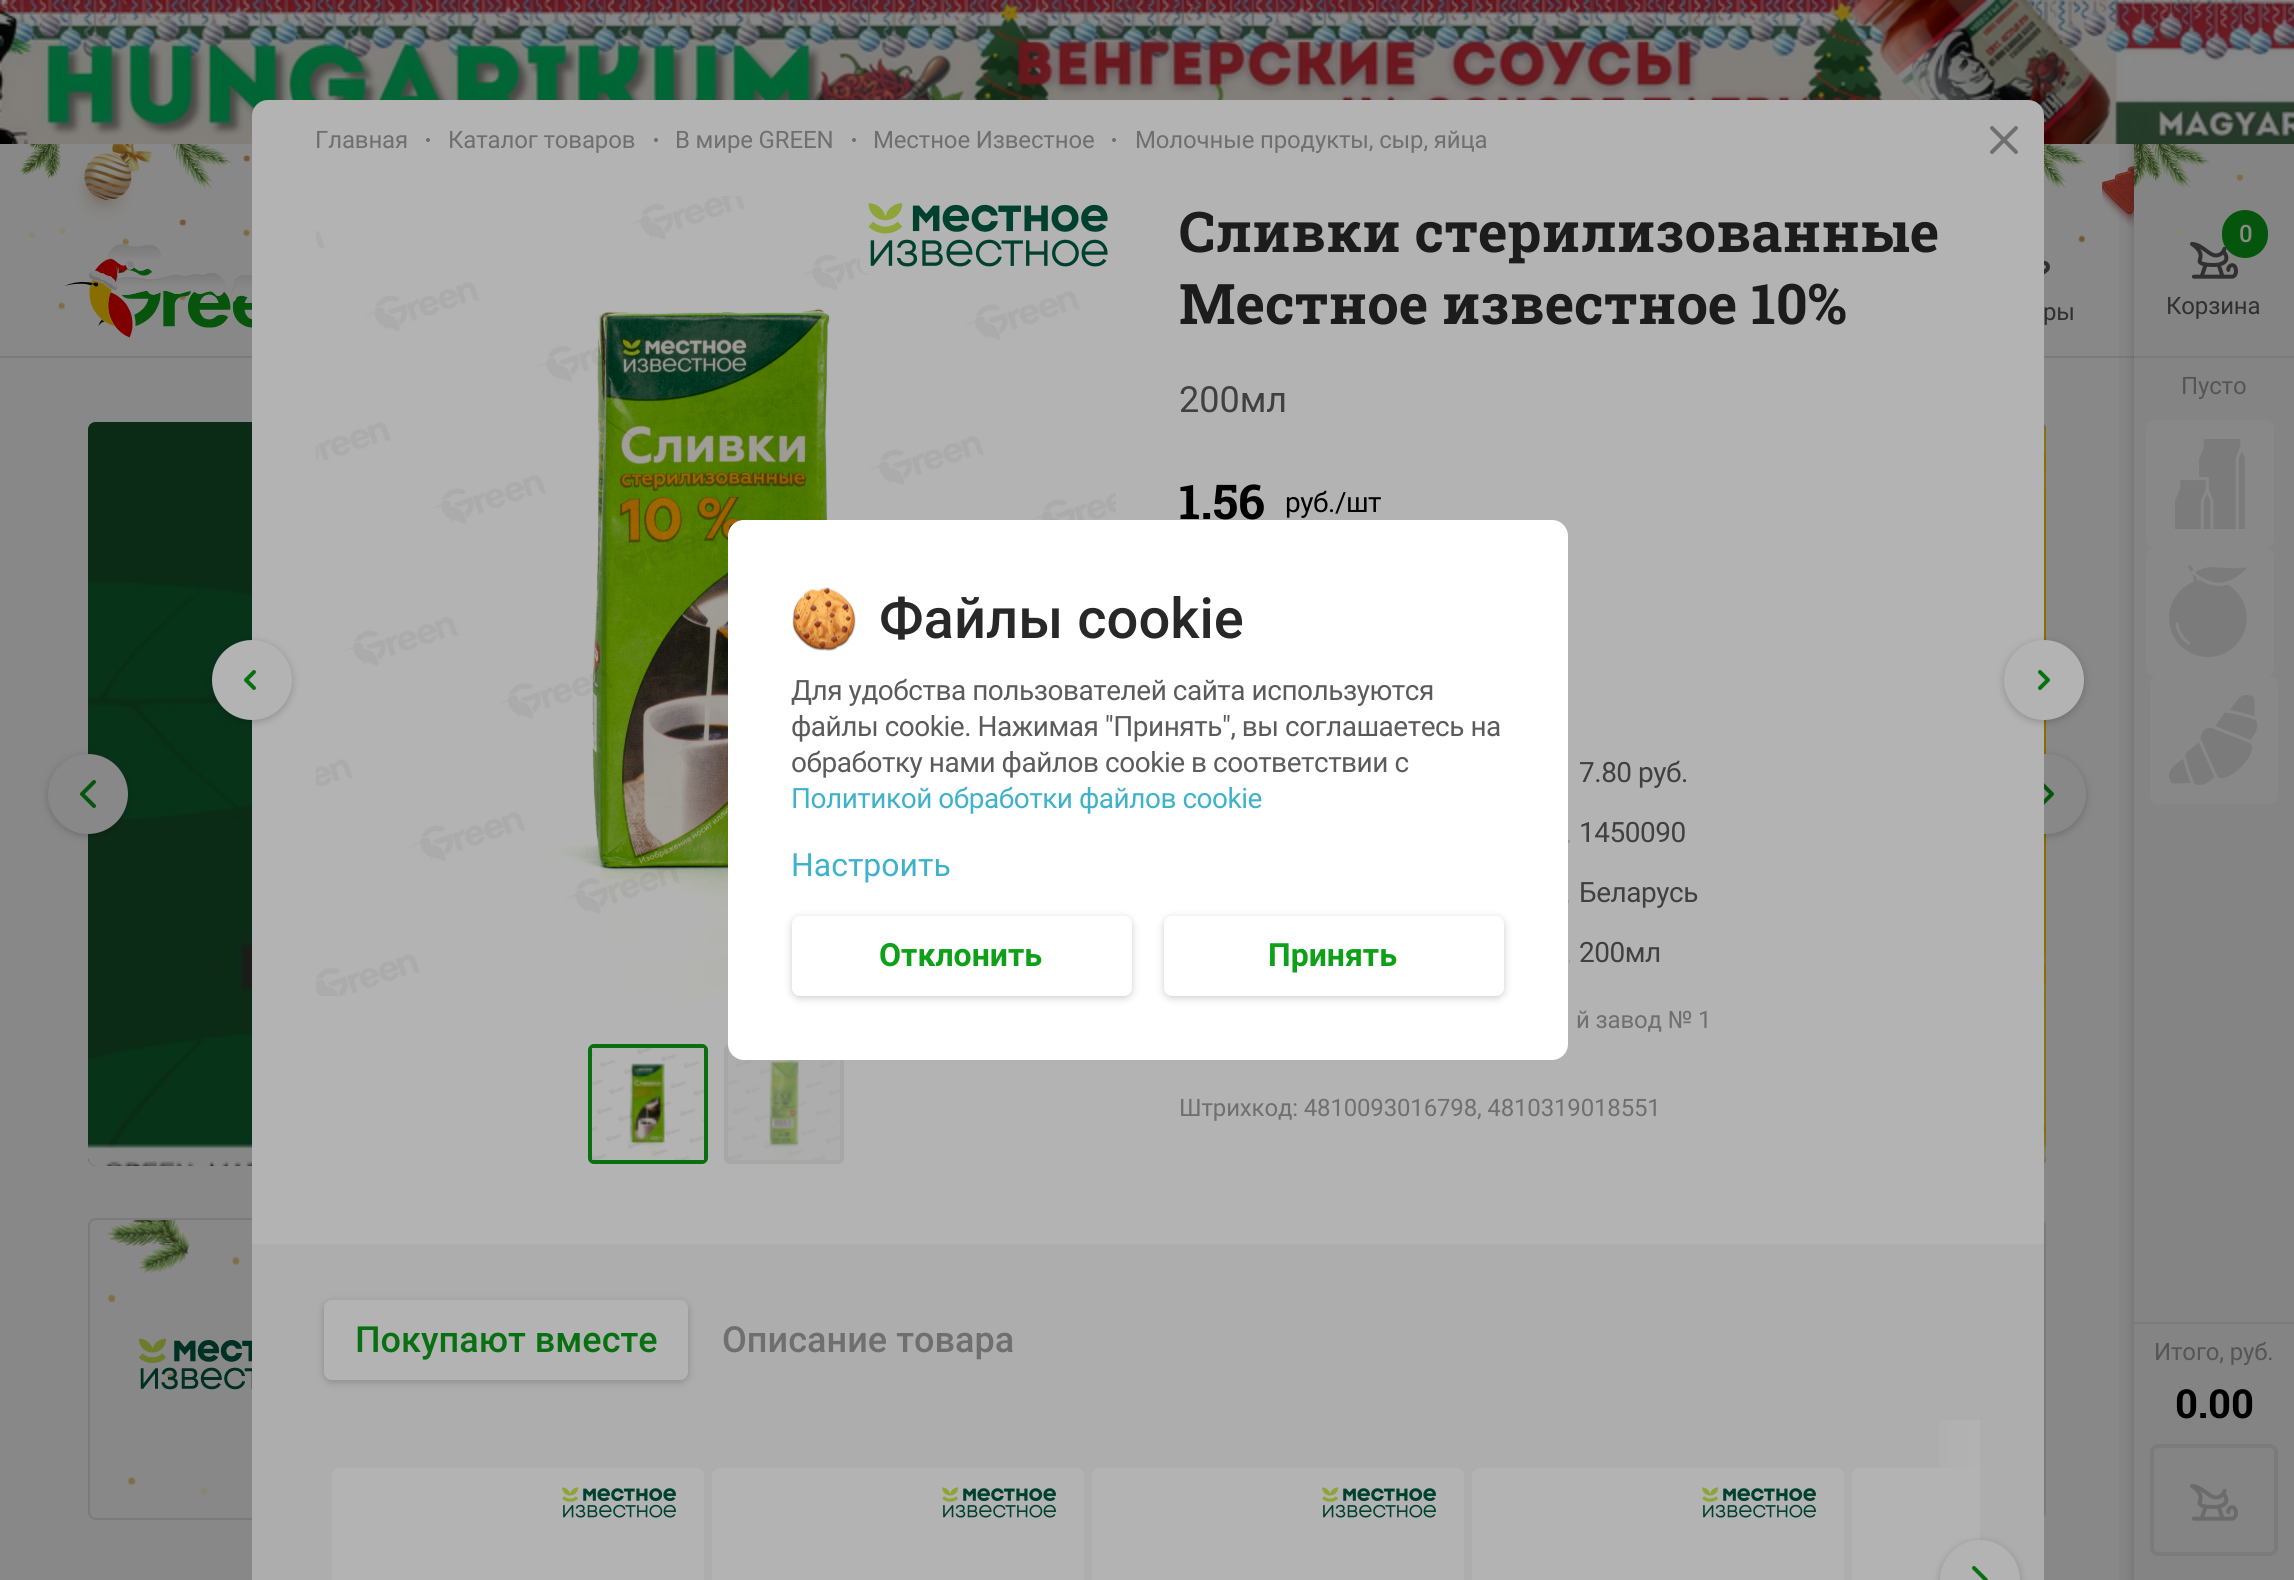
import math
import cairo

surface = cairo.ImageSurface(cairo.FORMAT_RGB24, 2294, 1580)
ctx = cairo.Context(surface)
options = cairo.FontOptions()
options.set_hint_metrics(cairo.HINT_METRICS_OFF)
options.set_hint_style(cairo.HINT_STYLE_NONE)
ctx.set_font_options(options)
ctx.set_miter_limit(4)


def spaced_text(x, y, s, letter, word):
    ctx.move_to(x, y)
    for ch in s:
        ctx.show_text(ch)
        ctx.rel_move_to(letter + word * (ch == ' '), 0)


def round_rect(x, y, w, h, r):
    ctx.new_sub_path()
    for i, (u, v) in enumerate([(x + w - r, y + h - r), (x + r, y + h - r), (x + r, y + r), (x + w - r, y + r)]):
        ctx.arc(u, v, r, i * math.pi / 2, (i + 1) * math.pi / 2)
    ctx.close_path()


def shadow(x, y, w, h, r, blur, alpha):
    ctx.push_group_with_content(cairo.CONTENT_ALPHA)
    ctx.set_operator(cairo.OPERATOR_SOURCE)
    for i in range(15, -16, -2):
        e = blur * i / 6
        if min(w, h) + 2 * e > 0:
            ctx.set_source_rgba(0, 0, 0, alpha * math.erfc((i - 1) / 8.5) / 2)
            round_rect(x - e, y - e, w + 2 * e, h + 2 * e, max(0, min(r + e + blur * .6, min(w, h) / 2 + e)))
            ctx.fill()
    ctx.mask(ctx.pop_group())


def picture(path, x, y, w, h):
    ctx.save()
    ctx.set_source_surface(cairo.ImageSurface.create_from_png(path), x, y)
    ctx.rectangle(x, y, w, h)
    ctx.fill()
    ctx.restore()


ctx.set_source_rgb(0.533, 0.533, 0.533)
ctx.paint()
picture("img1.png", 0, 0, 2294, 144)
picture("img10.png", 20, 144, 2114, 166)
ctx.set_source_rgb(0.482, 0.482, 0.482)
ctx.rectangle(0, 356, 2134, 2)
ctx.fill()
ctx.set_source_rgb(0.027, 0.333, 0.051)
round_rect(88, 422, 1958, 744, 8)
ctx.fill()
picture("img13.png", 88, 422, 1958, 744)
ctx.set_source_rgb(0, 0, 0)
shadow(2006, 756, 80, 80, 40, 4, 0.2)
ctx.set_source_rgb(0.533, 0.533, 0.533)
ctx.arc(2046, 794, 40, 0, 2 * math.pi)
ctx.fill()
ctx.new_path()
ctx.move_to(2040, 806)
ctx.line_to(2052, 794)
ctx.line_to(2040, 782)
ctx.set_source_rgb(0.027, 0.333, 0.051)
ctx.set_line_width(4)
ctx.set_line_cap(cairo.LINE_CAP_ROUND)
ctx.set_line_join(cairo.LINE_JOIN_ROUND)
ctx.stroke()
picture("img14.png", 107, 1220, 133, 276)
round_rect(89, 1219, 948, 300, 7)
ctx.set_source_rgb(0.482, 0.482, 0.482)
ctx.set_line_width(2)
ctx.set_line_cap(cairo.LINE_CAP_BUTT)
ctx.set_line_join(cairo.LINE_JOIN_MITER)
ctx.stroke()
round_rect(1099, 1219, 946, 300, 7)
ctx.stroke()
ctx.set_source_rgb(0.702, 0.702, 0.702)
ctx.new_path()
ctx.move_to(268, 100)
ctx.line_to(2028, 100)
ctx.curve_to(2037, 100, 2044, 107, 2044, 116)
ctx.line_to(2044, 1580)
ctx.line_to(252, 1580)
ctx.line_to(252, 116)
ctx.curve_to(252, 107, 259, 100, 268, 100)
ctx.close_path()
ctx.fill()
ctx.select_font_face("Roboto")
ctx.set_font_size(24)
ctx.set_source_rgb(0.435, 0.435, 0.435)
spaced_text(315, 148, "Главная", -0.15, 0)
ctx.new_path()
ctx.arc(428, 140, 2, 0, 2 * math.pi)
ctx.fill()
spaced_text(448, 148, "Каталог товаров", -0.15, 0)
ctx.new_path()
ctx.arc(656, 140, 2, 0, 2 * math.pi)
ctx.fill()
spaced_text(675, 148, "В мире GREEN", -0.15, 0)
ctx.new_path()
ctx.arc(854, 140, 2, 0, 2 * math.pi)
ctx.fill()
spaced_text(873, 148, "Местное Известное", -0.15, 0)
ctx.new_path()
ctx.arc(1114, 140, 2, 0, 2 * math.pi)
ctx.fill()
spaced_text(1135, 148, "Молочные продукты, сыр, яйца", -0.15, 0)
ctx.new_path()
ctx.move_to(2016, 128)
ctx.line_to(1992, 152)
ctx.move_to(1992, 128)
ctx.line_to(2016, 152)
ctx.set_line_width(4)
ctx.set_line_cap(cairo.LINE_CAP_ROUND)
ctx.set_line_join(cairo.LINE_JOIN_ROUND)
ctx.stroke()
ctx.set_source_rgb(0, 0, 0)
shadow(212, 642, 80, 80, 40, 4, 0.2)
ctx.set_source_rgb(0.702, 0.702, 0.702)
ctx.arc(252, 680, 40, 0, 2 * math.pi)
ctx.fill()
ctx.new_path()
ctx.move_to(254, 688)
ctx.line_to(246, 680)
ctx.line_to(254, 672)
ctx.set_source_rgb(0.035, 0.439, 0.067)
ctx.stroke()
picture("img2.png", 316, 196, 800, 800)
picture("img3.png", 860, 196, 248, 78)
round_rect(590, 1046, 116, 116, 4)
ctx.set_line_cap(cairo.LINE_CAP_BUTT)
ctx.set_line_join(cairo.LINE_JOIN_MITER)
ctx.stroke()
picture("img4.png", 592, 1048, 112, 112)
ctx.set_source_rgb(0.655, 0.655, 0.655)
round_rect(724, 1044, 120, 120, 6)
ctx.fill()
picture("img5.png", 728, 1048, 112, 112)
ctx.select_font_face("Roboto Slab", cairo.FONT_SLANT_NORMAL, cairo.FONT_WEIGHT_BOLD)
ctx.set_font_size(56)
ctx.set_source_rgb(0.11, 0.11, 0.11)
ctx.move_to(1179, 252)
ctx.show_text("Сливки стерилизованные")
ctx.move_to(1179, 324)
ctx.show_text("Местное известное 10%")
ctx.select_font_face("Roboto")
ctx.set_font_size(36)
ctx.set_source_rgb(0.251, 0.251, 0.251)
ctx.move_to(1179, 412)
ctx.show_text("200мл")
ctx.select_font_face("Roboto Slab", cairo.FONT_SLANT_NORMAL, cairo.FONT_WEIGHT_BOLD)
ctx.set_font_size(48)
ctx.set_source_rgb(0, 0, 0)
ctx.move_to(1179, 519)
ctx.show_text("1.56")
ctx.select_font_face("Roboto")
ctx.set_font_size(28)
spaced_text(1285, 512, "руб./шт", -0.48, 0)
ctx.set_source_rgb(0.251, 0.251, 0.251)
spaced_text(1579, 782, "7.80 руб.", -0.48, 0)
picture("img6.png", 1568, 840, 2, 3)
spaced_text(1579, 842, "1450090", -0.48, 0)
picture("img7.png", 1568, 900, 1, 3)
spaced_text(1579, 902, "Беларусь", -0.48, 0)
picture("img8.png", 1568, 960, 2, 3)
spaced_text(1579, 962, "200мл", -0.48, 0)
ctx.set_font_size(24)
ctx.set_source_rgb(0.435, 0.435, 0.435)
spaced_text(1576, 1028, "й завод № 1", -0.15, 0)
spaced_text(1179, 1116, "Штрихкод: 4810093016798, 4810319018551", -0.15, 0)
ctx.set_source_rgb(0, 0, 0)
shadow(2004, 642, 80, 80, 40, 4, 0.2)
ctx.set_source_rgb(0.702, 0.702, 0.702)
ctx.arc(2044, 680, 40, 0, 2 * math.pi)
ctx.fill()
ctx.new_path()
ctx.move_to(2040, 688)
ctx.line_to(2048, 680)
ctx.line_to(2040, 672)
ctx.set_source_rgb(0.035, 0.439, 0.067)
ctx.set_line_cap(cairo.LINE_CAP_ROUND)
ctx.set_line_join(cairo.LINE_JOIN_ROUND)
ctx.stroke()
ctx.set_source_rgb(0.678, 0.678, 0.678)
ctx.rectangle(252, 1244, 1792, 336)
ctx.fill()
ctx.set_source_rgb(0, 0, 0)
shadow(324, 1302, 364, 80, 8, 4, 0.2)
ctx.set_source_rgb(0.702, 0.702, 0.702)
round_rect(324, 1300, 364, 80, 8)
ctx.fill()
ctx.select_font_face("Roboto Medium")
ctx.set_font_size(36)
ctx.set_source_rgb(0.035, 0.439, 0.067)
ctx.move_to(355, 1352)
ctx.show_text("Покупают вместе")
ctx.set_source_rgb(0.435, 0.435, 0.435)
ctx.move_to(722, 1352)
ctx.show_text("Описание товара")
gradient = cairo.LinearGradient(1920, 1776, 1980, 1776)
gradient.add_color_stop_rgba(0, 0.702, 0.702, 0.702, 0.1)
gradient.add_color_stop_rgba(0.6, 0.702, 0.702, 0.702, 0.7)
gradient.add_color_stop_rgba(1, 0.702, 0.702, 0.702, 0.9)
ctx.set_source(gradient)
ctx.rectangle(1939, 1420, 41, 48)
ctx.fill()
ctx.set_source_rgb(0.702, 0.702, 0.702)
ctx.new_path()
ctx.move_to(340, 1468)
ctx.line_to(696, 1468)
ctx.curve_to(700.5, 1468, 704, 1471.5, 704, 1476)
ctx.line_to(704, 1580)
ctx.line_to(332, 1580)
ctx.line_to(332, 1476)
ctx.curve_to(332, 1471.5, 335.5, 1468, 340, 1468)
ctx.close_path()
ctx.fill()
picture("img9.png", 562, 1487, 114, 31)
ctx.new_path()
ctx.move_to(720, 1468)
ctx.line_to(1076, 1468)
ctx.curve_to(1080.5, 1468, 1084, 1471.5, 1084, 1476)
ctx.line_to(1084, 1580)
ctx.line_to(712, 1580)
ctx.line_to(712, 1476)
ctx.curve_to(712, 1471.5, 715.5, 1468, 720, 1468)
ctx.close_path()
ctx.fill()
picture("img9.png", 942, 1487, 114, 31)
ctx.new_path()
ctx.move_to(1100, 1468)
ctx.line_to(1456, 1468)
ctx.curve_to(1460.5, 1468, 1464, 1471.5, 1464, 1476)
ctx.line_to(1464, 1580)
ctx.line_to(1092, 1580)
ctx.line_to(1092, 1476)
ctx.curve_to(1092, 1471.5, 1095.5, 1468, 1100, 1468)
ctx.close_path()
ctx.fill()
picture("img9.png", 1322, 1487, 114, 31)
ctx.new_path()
ctx.move_to(1480, 1468)
ctx.line_to(1836, 1468)
ctx.curve_to(1840.5, 1468, 1844, 1471.5, 1844, 1476)
ctx.line_to(1844, 1580)
ctx.line_to(1472, 1580)
ctx.line_to(1472, 1476)
ctx.curve_to(1472, 1471.5, 1475.5, 1468, 1480, 1468)
ctx.close_path()
ctx.fill()
picture("img9.png", 1702, 1487, 114, 31)
ctx.new_path()
ctx.move_to(1860, 1468)
ctx.line_to(1980, 1468)
ctx.line_to(1980, 1580)
ctx.line_to(1852, 1580)
ctx.line_to(1852, 1476)
ctx.curve_to(1852, 1471.5, 1855.5, 1468, 1860, 1468)
ctx.close_path()
ctx.fill()
ctx.set_source_rgb(0, 0, 0)
shadow(1940, 1542, 80, 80, 40, 4, 0.2)
ctx.set_source_rgb(0.702, 0.702, 0.702)
ctx.new_path()
ctx.move_to(1980, 1540)
ctx.curve_to(2002, 1540, 2020, 1558, 2020, 1580)
ctx.line_to(1940, 1580)
ctx.curve_to(1940, 1558, 1958, 1540, 1980, 1540)
ctx.close_path()
ctx.fill()
ctx.new_path()
ctx.move_to(1974, 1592)
ctx.line_to(1986, 1580)
ctx.line_to(1974, 1568)
ctx.set_source_rgb(0.035, 0.439, 0.067)
ctx.stroke()
picture("img11.png", 64, 244, 188, 94)
picture("img12.png", 2044, 260, 6, 15)
ctx.select_font_face("Roboto")
ctx.set_font_size(24)
ctx.set_source_rgb(0.188, 0.188, 0.188)
spaced_text(2043, 320, "ры", -0.15, 0)
ctx.set_source_rgb(0, 0, 0)
shadow(48, 756, 80, 80, 40, 4, 0.2)
ctx.set_source_rgb(0.533, 0.533, 0.533)
ctx.arc(88, 794, 40, 0, 2 * math.pi)
ctx.fill()
ctx.new_path()
ctx.move_to(94, 806)
ctx.line_to(82, 794)
ctx.line_to(94, 782)
ctx.set_source_rgb(0.027, 0.333, 0.051)
ctx.stroke()
picture("img15.png", 139, 1338, 113, 52)
gradient = cairo.LinearGradient(2094, 934, 2134, 934)
gradient.add_color_stop_rgba(0, 0.067, 0.067, 0.075, 0)
gradient.add_color_stop_rgba(0.06, 0.067, 0.067, 0.075, 0)
gradient.add_color_stop_rgba(0.07, 0.067, 0.067, 0.075, 0)
gradient.add_color_stop_rgba(0.15, 0.067, 0.067, 0.075, 0)
gradient.add_color_stop_rgba(0.2, 0.067, 0.067, 0.075, 0.01)
gradient.add_color_stop_rgba(0.3, 0.067, 0.067, 0.075, 0.01)
gradient.add_color_stop_rgba(0.35, 0.067, 0.067, 0.075, 0.01)
gradient.add_color_stop_rgba(0.45, 0.067, 0.067, 0.075, 0.02)
gradient.add_color_stop_rgba(0.6, 0.067, 0.067, 0.075, 0.02)
gradient.add_color_stop_rgba(0.7, 0.067, 0.067, 0.075, 0.03)
gradient.add_color_stop_rgba(0.8, 0.067, 0.067, 0.075, 0.04)
gradient.add_color_stop_rgba(0.9, 0.067, 0.067, 0.075, 0.07)
gradient.add_color_stop_rgba(1, 0.067, 0.067, 0.075, 0.14)
ctx.set_source(gradient)
ctx.rectangle(2119, 144, 15, 1436)
ctx.fill()
ctx.set_source_rgb(0.518, 0.518, 0.518)
ctx.rectangle(2134, 144, 160, 1436)
ctx.fill()
picture("img16.png", 2134, 144, 110, 91)
ctx.set_source_rgb(0.482, 0.482, 0.482)
ctx.rectangle(2134, 356, 160, 2)
ctx.fill()
picture("img17.png", 2190, 242, 48, 37)
ctx.set_source_rgb(0.027, 0.333, 0.051)
round_rect(2222, 210, 46, 48, 23)
ctx.fill()
ctx.select_font_face("Roboto Medium")
ctx.set_source_rgb(0.533, 0.533, 0.533)
spaced_text(2239, 242, "0", -0.15, 0)
ctx.select_font_face("Roboto")
ctx.set_source_rgb(0.188, 0.188, 0.188)
spaced_text(2166, 314, "Корзина", -0.15, 0)
ctx.set_source_rgb(0.333, 0.333, 0.333)
spaced_text(2181, 394, "Пусто", -0.15, 0)
picture("img18.png", 2146, 420, 128, 128)
picture("img19.png", 2146, 548, 128, 128)
picture("img20.png", 2150, 676, 128, 128)
ctx.set_source_rgb(0.482, 0.482, 0.482)
ctx.rectangle(2134, 1322, 160, 2)
ctx.fill()
ctx.set_source_rgb(0.333, 0.333, 0.333)
spaced_text(2154, 1360, "Итого, руб.", -0.15, 0)
ctx.select_font_face("Roboto Slab", cairo.FONT_SLANT_NORMAL, cairo.FONT_WEIGHT_BOLD)
ctx.set_font_size(40)
ctx.set_source_rgb(0, 0, 0)
ctx.move_to(2175, 1418)
ctx.show_text("0.00")
round_rect(2152, 1446, 124, 108, 6)
ctx.set_source_rgb(0.482, 0.482, 0.482)
ctx.set_line_cap(cairo.LINE_CAP_BUTT)
ctx.set_line_join(cairo.LINE_JOIN_MITER)
ctx.stroke()
picture("img21.png", 2190, 1484, 48, 37)
ctx.set_source_rgb(1, 1, 1)
round_rect(728, 520, 840, 540, 16)
ctx.fill()
picture("img22.png", 792, 587, 64, 64)
ctx.select_font_face("Roboto Medium")
ctx.set_font_size(56)
ctx.set_source_rgb(0.157, 0.157, 0.157)
ctx.move_to(879, 638)
ctx.show_text("Файлы cookie")
ctx.select_font_face("Roboto")
ctx.set_font_size(28)
ctx.set_source_rgb(0.357, 0.357, 0.357)
spaced_text(791, 700, "Для удобства пользователей сайта используются", -0.48, 0)
spaced_text(791, 736, "файлы cookie. Нажимая \"Принять\", вы соглашаетесь на", -0.48, 0)
spaced_text(791, 772, "обработку нами файлов cookie в соответствии с", -0.48, 0)
ctx.set_source_rgb(0.243, 0.698, 0.8)
spaced_text(791, 808, "Политикой обработки файлов cookie", -0.48, 0)
ctx.set_font_size(32)
ctx.move_to(791, 876)
ctx.show_text("Настроить")
ctx.set_source_rgb(0, 0, 0)
shadow(792, 918, 340, 80, 8, 4, 0.2)
ctx.set_source_rgb(1, 1, 1)
round_rect(792, 916, 340, 80, 8)
ctx.fill()
ctx.select_font_face("Roboto", cairo.FONT_SLANT_NORMAL, cairo.FONT_WEIGHT_BOLD)
ctx.set_source_rgb(0.051, 0.627, 0.094)
ctx.move_to(879, 966)
ctx.show_text("Отклонить")
ctx.set_source_rgb(0, 0, 0)
shadow(1164, 918, 340, 80, 8, 4, 0.2)
ctx.set_source_rgb(1, 1, 1)
round_rect(1164, 916, 340, 80, 8)
ctx.fill()
ctx.set_source_rgb(0.051, 0.627, 0.094)
ctx.move_to(1268, 966)
ctx.show_text("Принять")
surface.write_to_png("page.png")
